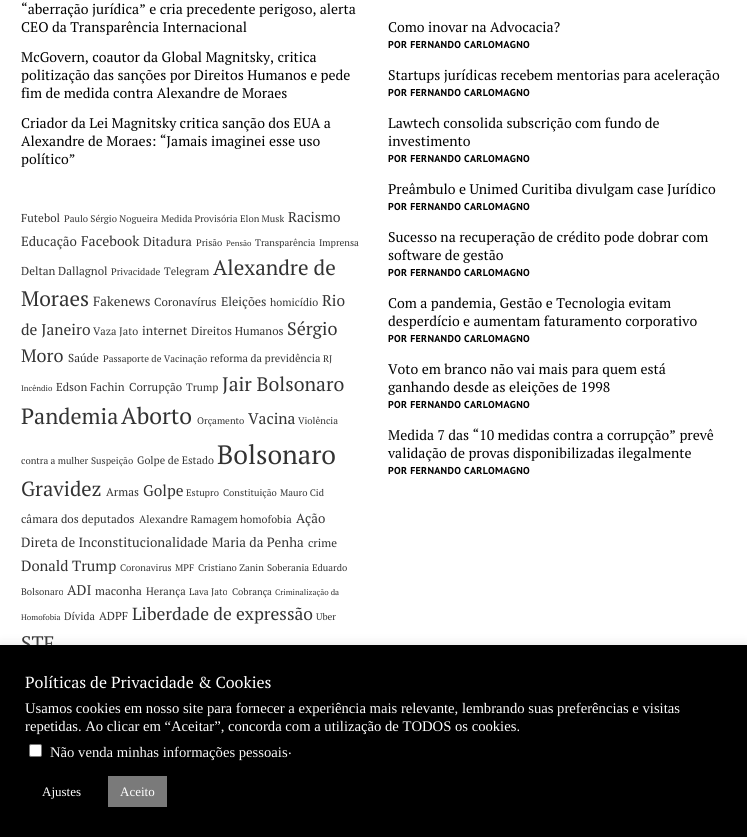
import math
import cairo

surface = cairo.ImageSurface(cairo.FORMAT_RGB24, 747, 837)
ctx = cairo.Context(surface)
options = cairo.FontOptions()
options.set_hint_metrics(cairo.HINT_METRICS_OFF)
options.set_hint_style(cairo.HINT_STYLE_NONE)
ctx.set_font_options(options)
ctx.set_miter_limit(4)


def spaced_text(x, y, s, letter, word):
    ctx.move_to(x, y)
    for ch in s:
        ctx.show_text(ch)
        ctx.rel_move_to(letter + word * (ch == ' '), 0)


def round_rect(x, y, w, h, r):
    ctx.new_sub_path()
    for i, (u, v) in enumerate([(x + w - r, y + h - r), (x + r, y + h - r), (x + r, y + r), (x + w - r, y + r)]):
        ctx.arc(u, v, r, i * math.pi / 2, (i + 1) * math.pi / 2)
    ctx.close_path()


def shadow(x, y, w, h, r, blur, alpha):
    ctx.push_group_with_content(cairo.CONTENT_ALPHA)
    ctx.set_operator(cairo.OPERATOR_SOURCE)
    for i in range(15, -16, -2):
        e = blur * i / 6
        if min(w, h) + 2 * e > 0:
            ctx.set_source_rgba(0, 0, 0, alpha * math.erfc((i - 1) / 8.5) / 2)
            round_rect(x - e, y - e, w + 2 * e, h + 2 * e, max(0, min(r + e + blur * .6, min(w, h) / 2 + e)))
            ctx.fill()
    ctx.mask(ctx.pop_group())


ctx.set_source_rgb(1, 1, 1)
ctx.paint()
ctx.select_font_face("PT Serif")
ctx.set_font_size(14)
ctx.set_source_rgb(0, 0, 0)
ctx.move_to(21, 14)
ctx.show_text("“aberração jurídica” e cria precedente perigoso, alerta")
ctx.move_to(21, 32)
ctx.show_text("CEO da Transparência Internacional")
ctx.move_to(21, 62)
ctx.show_text("McGovern, coautor da Global Magnitsky, critica")
ctx.move_to(21, 80)
ctx.show_text("politização das sanções por Direitos Humanos e pede")
ctx.move_to(21, 98)
ctx.show_text("fim de medida contra Alexandre de Moraes")
ctx.move_to(21, 128)
ctx.show_text("Criador da Lei Magnitsky critica sanção dos EUA a")
ctx.move_to(21, 146)
ctx.show_text("Alexandre de Moraes: “Jamais imaginei esse uso")
ctx.move_to(21, 164)
ctx.show_text("político”")
ctx.move_to(388, 32)
ctx.show_text("Como inovar na Advocacia?")
ctx.select_font_face("PT Sans", cairo.FONT_SLANT_NORMAL, cairo.FONT_WEIGHT_BOLD)
ctx.set_font_size(10)
spaced_text(388, 48, "POR FERNANDO CARLOMAGNO", 0.3, 0)
ctx.select_font_face("PT Serif")
ctx.set_font_size(14)
ctx.move_to(388, 80)
ctx.show_text("Startups jurídicas recebem mentorias para aceleração")
ctx.select_font_face("PT Sans", cairo.FONT_SLANT_NORMAL, cairo.FONT_WEIGHT_BOLD)
ctx.set_font_size(10)
spaced_text(388, 96, "POR FERNANDO CARLOMAGNO", 0.3, 0)
ctx.select_font_face("PT Serif")
ctx.set_font_size(14)
ctx.move_to(388, 128)
ctx.show_text("Lawtech consolida subscrição com fundo de")
ctx.move_to(388, 146)
ctx.show_text("investimento")
ctx.select_font_face("PT Sans", cairo.FONT_SLANT_NORMAL, cairo.FONT_WEIGHT_BOLD)
ctx.set_font_size(10)
spaced_text(388, 162, "POR FERNANDO CARLOMAGNO", 0.3, 0)
ctx.select_font_face("PT Serif")
ctx.set_font_size(14)
ctx.move_to(388, 194)
ctx.show_text("Preâmbulo e Unimed Curitiba divulgam case Jurídico")
ctx.select_font_face("PT Sans", cairo.FONT_SLANT_NORMAL, cairo.FONT_WEIGHT_BOLD)
ctx.set_font_size(10)
spaced_text(388, 210, "POR FERNANDO CARLOMAGNO", 0.3, 0)
ctx.select_font_face("PT Serif")
ctx.set_font_size(14)
ctx.move_to(388, 242)
ctx.show_text("Sucesso na recuperação de crédito pode dobrar com")
ctx.move_to(388, 260)
ctx.show_text("software de gestão")
ctx.select_font_face("PT Sans", cairo.FONT_SLANT_NORMAL, cairo.FONT_WEIGHT_BOLD)
ctx.set_font_size(10)
spaced_text(388, 276, "POR FERNANDO CARLOMAGNO", 0.3, 0)
ctx.select_font_face("PT Serif")
ctx.set_font_size(14)
ctx.move_to(388, 308)
ctx.show_text("Com a pandemia, Gestão e Tecnologia evitam")
ctx.move_to(388, 326)
ctx.show_text("desperdício e aumentam faturamento corporativo")
ctx.select_font_face("PT Sans", cairo.FONT_SLANT_NORMAL, cairo.FONT_WEIGHT_BOLD)
ctx.set_font_size(10)
spaced_text(388, 342, "POR FERNANDO CARLOMAGNO", 0.3, 0)
ctx.select_font_face("PT Serif")
ctx.set_font_size(14)
ctx.move_to(388, 374)
ctx.show_text("Voto em branco não vai mais para quem está")
ctx.move_to(388, 392)
ctx.show_text("ganhando desde as eleições de 1998")
ctx.select_font_face("PT Sans", cairo.FONT_SLANT_NORMAL, cairo.FONT_WEIGHT_BOLD)
ctx.set_font_size(10)
spaced_text(388, 408, "POR FERNANDO CARLOMAGNO", 0.3, 0)
ctx.select_font_face("PT Serif")
ctx.set_font_size(14)
ctx.move_to(388, 440)
ctx.show_text("Medida 7 das “10 medidas contra a corrupção” prevê")
ctx.move_to(388, 458)
ctx.show_text("validação de provas disponibilizadas ilegalmente")
ctx.select_font_face("PT Sans", cairo.FONT_SLANT_NORMAL, cairo.FONT_WEIGHT_BOLD)
ctx.set_font_size(10)
spaced_text(388, 474, "POR FERNANDO CARLOMAGNO", 0.3, 0)
ctx.select_font_face("PT Serif")
ctx.set_font_size(11.5)
ctx.set_source_rgb(0.2, 0.2, 0.2)
ctx.move_to(21, 222)
ctx.show_text("Futebol")
ctx.set_font_size(9.5)
ctx.move_to(64, 222)
ctx.show_text("Paulo Sérgio Nogueira")
ctx.move_to(161, 222)
ctx.show_text("Medida Provisória")
ctx.move_to(240, 222)
ctx.show_text("Elon Musk")
ctx.set_font_size(14)
ctx.move_to(288, 222)
ctx.show_text("Racismo")
ctx.set_font_size(13.3)
ctx.move_to(21, 246)
ctx.show_text("Educação")
ctx.set_font_size(14)
ctx.move_to(81, 246)
ctx.show_text("Facebook")
ctx.set_font_size(12.5)
ctx.move_to(143, 246)
ctx.show_text("Ditadura")
ctx.set_font_size(9.5)
ctx.move_to(196, 246)
ctx.show_text("Prisão")
ctx.set_font_size(8)
ctx.move_to(226, 246)
ctx.show_text("Pensão")
ctx.set_font_size(9.5)
ctx.move_to(255, 246)
ctx.show_text("Transparência")
ctx.move_to(319, 246)
ctx.show_text("Imprensa")
ctx.set_font_size(11.5)
ctx.move_to(21, 275)
ctx.show_text("Deltan Dallagnol")
ctx.set_font_size(9.5)
ctx.move_to(111, 275)
ctx.show_text("Privacidade")
ctx.set_font_size(10.75)
ctx.move_to(164, 275)
ctx.show_text("Telegram")
ctx.set_font_size(21)
ctx.move_to(213, 275)
ctx.show_text("Alexandre de")
ctx.move_to(21, 306)
ctx.show_text("Moraes")
ctx.set_font_size(13.3)
ctx.move_to(93, 306)
ctx.show_text("Fakenews")
ctx.set_font_size(11.5)
ctx.move_to(154, 306)
ctx.show_text("Coronavírus")
ctx.set_font_size(12.5)
ctx.move_to(221, 306)
ctx.show_text("Eleições")
ctx.set_font_size(10.75)
ctx.move_to(270, 306)
ctx.show_text("homicídio")
ctx.set_font_size(15.5)
ctx.move_to(322, 306)
ctx.show_text("Rio")
ctx.move_to(21, 335)
ctx.show_text("de Janeiro")
ctx.set_font_size(10.75)
ctx.move_to(93, 335)
ctx.show_text("Vaza Jato")
ctx.set_font_size(12.5)
ctx.move_to(142, 335)
ctx.show_text("internet")
ctx.set_font_size(11.5)
ctx.move_to(191, 335)
ctx.show_text("Direitos Humanos")
ctx.set_font_size(18)
ctx.move_to(287, 335)
ctx.show_text("Sérgio")
ctx.move_to(21, 362)
ctx.show_text("Moro")
ctx.set_font_size(11.5)
ctx.move_to(68, 362)
ctx.show_text("Saúde")
ctx.set_font_size(9.5)
ctx.move_to(103, 362)
ctx.show_text("Passaporte de Vacinação")
ctx.set_font_size(10.75)
ctx.move_to(210, 362)
ctx.show_text("reforma da previdência")
ctx.set_font_size(9.5)
ctx.move_to(323, 362)
ctx.show_text("RJ")
ctx.set_font_size(8)
ctx.move_to(21, 391)
ctx.show_text("Incêndio")
ctx.set_font_size(11.5)
ctx.move_to(56, 391)
ctx.show_text("Edson Fachin")
ctx.move_to(129, 391)
ctx.show_text("Corrupção")
ctx.set_font_size(10.75)
ctx.move_to(186, 391)
ctx.show_text("Trump")
ctx.set_font_size(19.5)
ctx.move_to(222, 391)
ctx.show_text("Jair Bolsonaro")
ctx.set_font_size(22)
ctx.move_to(21, 424)
ctx.show_text("Pandemia")
ctx.set_font_size(23)
ctx.move_to(121, 424)
ctx.show_text("Aborto")
ctx.set_font_size(9.5)
ctx.move_to(197, 424)
ctx.show_text("Orçamento")
ctx.set_font_size(15.5)
ctx.move_to(248, 424)
ctx.show_text("Vacina")
ctx.set_font_size(9.5)
ctx.move_to(298, 424)
ctx.show_text("Violência")
ctx.move_to(21, 464)
ctx.show_text("contra a mulher")
ctx.move_to(91, 464)
ctx.show_text("Suspeição")
ctx.set_font_size(10.75)
ctx.move_to(137, 464)
ctx.show_text("Golpe de Estado")
ctx.set_font_size(26.5)
ctx.move_to(217, 464)
ctx.show_text("Bolsonaro")
ctx.set_font_size(20.5)
ctx.move_to(21, 496)
ctx.show_text("Gravidez")
ctx.set_font_size(11.5)
ctx.move_to(106, 496)
ctx.show_text("Armas")
ctx.set_font_size(15.5)
ctx.move_to(143, 496)
ctx.show_text("Golpe")
ctx.set_font_size(9.5)
ctx.move_to(186, 496)
ctx.show_text("Estupro")
ctx.move_to(223, 496)
ctx.show_text("Constituição")
ctx.move_to(280, 496)
ctx.show_text("Mauro Cid")
ctx.set_font_size(11.5)
ctx.move_to(21, 523)
ctx.show_text("câmara dos deputados")
ctx.set_font_size(10.75)
ctx.move_to(139, 523)
ctx.show_text("Alexandre Ramagem")
ctx.move_to(240, 523)
ctx.show_text("homofobia")
ctx.set_font_size(13.3)
ctx.move_to(296, 523)
ctx.show_text("Ação")
ctx.move_to(21, 547)
ctx.show_text("Direta de Inconstitucionalidade")
ctx.move_to(212, 547)
ctx.show_text("Maria da Penha")
ctx.set_font_size(11.5)
ctx.move_to(308, 547)
ctx.show_text("crime")
ctx.set_font_size(14.75)
ctx.move_to(21, 571)
ctx.show_text("Donald Trump")
ctx.set_font_size(9.5)
ctx.move_to(120, 571)
ctx.show_text("Coronavirus")
ctx.move_to(175, 571)
ctx.show_text("MPF")
ctx.move_to(198, 571)
ctx.show_text("Cristiano Zanin")
ctx.move_to(267, 571)
ctx.show_text("Soberania")
ctx.move_to(312, 571)
ctx.show_text("Eduardo")
ctx.move_to(21, 595)
ctx.show_text("Bolsonaro")
ctx.set_font_size(14)
ctx.move_to(67, 595)
ctx.show_text("ADI")
ctx.set_font_size(11.5)
ctx.move_to(95, 595)
ctx.show_text("maconha")
ctx.set_font_size(10.75)
ctx.move_to(146, 595)
ctx.show_text("Herança")
ctx.set_font_size(9.5)
ctx.move_to(189, 595)
ctx.show_text("Lava Jato")
ctx.move_to(232, 595)
ctx.show_text("Cobrança")
ctx.set_font_size(8)
ctx.move_to(275, 595)
ctx.show_text("Criminalização da")
ctx.move_to(21, 620)
ctx.show_text("Homofobia")
ctx.set_font_size(10.75)
ctx.move_to(64, 620)
ctx.show_text("Dívida")
ctx.set_font_size(11.5)
ctx.move_to(99, 620)
ctx.show_text("ADPF")
ctx.set_font_size(17.5)
ctx.move_to(132, 620)
ctx.show_text("Liberdade de expressão")
ctx.set_font_size(9.5)
ctx.move_to(316, 620)
ctx.show_text("Uber")
ctx.set_font_size(19.5)
ctx.move_to(21, 650)
ctx.show_text("STF")
ctx.set_source_rgb(0.675, 0.671, 0.671)
shadow(0, 644, 747, 192, 0, 5, 0.3)
ctx.set_source_rgb(0, 0, 0)
ctx.rectangle(0, 645, 747, 192)
ctx.fill()
ctx.set_font_size(16)
ctx.set_source_rgb(1, 1, 1)
ctx.move_to(25, 688)
ctx.show_text("Políticas de Privacidade & Cookies")
ctx.select_font_face("Liberation Serif")
ctx.set_font_size(14.65)
ctx.move_to(25, 713)
ctx.show_text("Usamos cookies em nosso site para fornecer a experiência mais relevante, lembrando suas preferências e visitas")
ctx.move_to(25, 731)
ctx.show_text("repetidas. Ao clicar em “Aceitar”, concorda com a utilização de TODOS os cookies.")
round_rect(29.5, 744.5, 12, 12, 1.5)
ctx.fill_preserve()
ctx.set_source_rgb(0.463, 0.463, 0.463)
ctx.set_line_width(1)
ctx.stroke()
ctx.set_source_rgb(0.969, 0.969, 0.969)
ctx.move_to(50, 757)
ctx.show_text("Não venda minhas informações pessoais")
ctx.set_source_rgb(1, 1, 1)
ctx.move_to(288, 754)
ctx.show_text(".")
ctx.set_font_size(13)
ctx.move_to(42, 796)
ctx.show_text("Ajustes")
ctx.set_source_rgb(0.478, 0.478, 0.478)
ctx.rectangle(108, 776, 59, 31)
ctx.fill()
ctx.set_source_rgb(1, 1, 1)
ctx.move_to(120, 796)
ctx.show_text("Aceito")
surface.write_to_png("page.png")
